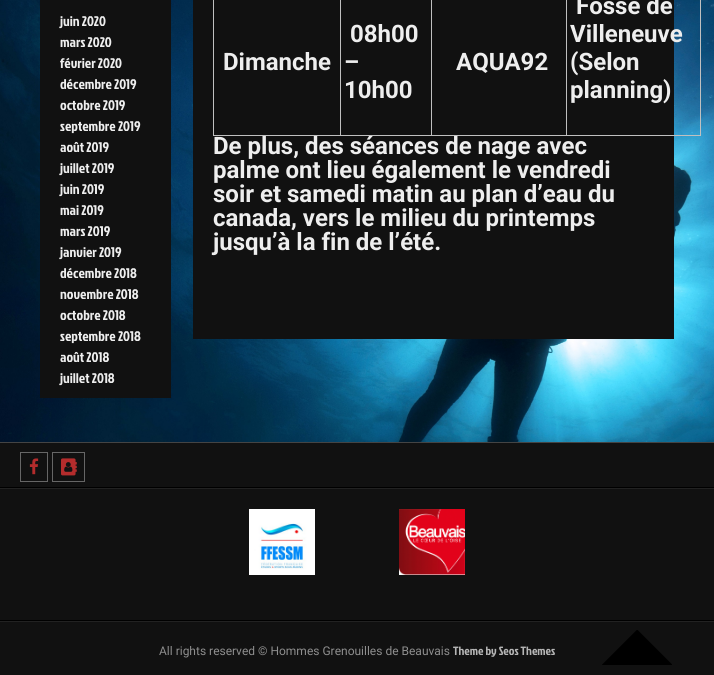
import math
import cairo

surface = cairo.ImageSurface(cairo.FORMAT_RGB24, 714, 675)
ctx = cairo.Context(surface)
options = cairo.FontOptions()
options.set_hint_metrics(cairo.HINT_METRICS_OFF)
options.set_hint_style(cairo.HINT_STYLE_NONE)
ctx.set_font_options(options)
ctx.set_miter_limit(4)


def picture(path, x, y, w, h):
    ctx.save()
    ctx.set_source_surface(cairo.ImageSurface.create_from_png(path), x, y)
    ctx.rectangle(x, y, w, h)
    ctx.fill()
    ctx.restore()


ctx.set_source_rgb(1, 1, 1)
ctx.paint()
picture("img1.png", 0, 0, 714, 442)
ctx.set_source_rgb(0.067, 0.067, 0.067)
ctx.rectangle(40, 0, 131, 398)
ctx.fill()
ctx.select_font_face("Jockey One")
ctx.set_font_size(14)
ctx.set_source_rgb(0.933, 0.933, 0.933)
ctx.move_to(60, 26)
ctx.show_text("juin 2020")
ctx.move_to(60, 47)
ctx.show_text("mars 2020")
ctx.move_to(60, 68)
ctx.show_text("février 2020")
ctx.move_to(60, 89)
ctx.show_text("décembre 2019")
ctx.move_to(60, 110)
ctx.show_text("octobre 2019")
ctx.move_to(60, 131)
ctx.show_text("septembre 2019")
ctx.move_to(60, 152)
ctx.show_text("août 2019")
ctx.move_to(60, 173)
ctx.show_text("juillet 2019")
ctx.move_to(60, 194)
ctx.show_text("juin 2019")
ctx.move_to(60, 215)
ctx.show_text("mai 2019")
ctx.move_to(60, 236)
ctx.show_text("mars 2019")
ctx.move_to(60, 257)
ctx.show_text("janvier 2019")
ctx.move_to(60, 278)
ctx.show_text("décembre 2018")
ctx.move_to(60, 299)
ctx.show_text("novembre 2018")
ctx.move_to(60, 320)
ctx.show_text("octobre 2018")
ctx.move_to(60, 341)
ctx.show_text("septembre 2018")
ctx.move_to(60, 362)
ctx.show_text("août 2018")
ctx.move_to(60, 383)
ctx.show_text("juillet 2018")
ctx.set_source_rgb(0.067, 0.067, 0.067)
ctx.rectangle(193, 0, 481, 339)
ctx.fill()
ctx.set_source_rgb(0.753, 0.753, 0.753)
ctx.rectangle(700, 0, 1, 136)
ctx.fill()
ctx.rectangle(213, 135, 488, 1)
ctx.fill()
ctx.rectangle(213, 0, 1, 136)
ctx.fill()
ctx.select_font_face("Roboto", cairo.FONT_SLANT_NORMAL, cairo.FONT_WEIGHT_BOLD)
ctx.set_font_size(24)
ctx.set_source_rgb(0.933, 0.933, 0.933)
ctx.move_to(223, 70)
ctx.show_text("Dimanche")
ctx.set_source_rgb(0.753, 0.753, 0.753)
ctx.rectangle(340, 0, 1, 136)
ctx.fill()
ctx.set_source_rgb(0.933, 0.933, 0.933)
ctx.move_to(350, 42)
ctx.show_text("08h00")
ctx.move_to(344, 70)
ctx.show_text("–")
ctx.move_to(344, 98)
ctx.show_text("10h00")
ctx.set_source_rgb(0.753, 0.753, 0.753)
ctx.rectangle(431, 0, 1, 136)
ctx.fill()
ctx.set_source_rgb(0.933, 0.933, 0.933)
ctx.move_to(456, 70)
ctx.show_text("AQUA92")
ctx.set_source_rgb(0.753, 0.753, 0.753)
ctx.rectangle(566, 0, 1, 136)
ctx.fill()
ctx.set_source_rgb(0.933, 0.933, 0.933)
ctx.move_to(576, 14)
ctx.show_text("Fosse de")
ctx.move_to(570, 42)
ctx.show_text("Villeneuve")
ctx.move_to(570, 70)
ctx.show_text("(Selon")
ctx.move_to(570, 98)
ctx.show_text("planning)")
ctx.move_to(213, 154)
ctx.show_text("De plus, des séances de nage avec")
ctx.move_to(213, 178)
ctx.show_text("palme ont lieu également le vendredi")
ctx.move_to(213, 202)
ctx.show_text("soir et samedi matin au plan d’eau du")
ctx.move_to(213, 226)
ctx.show_text("canada, vers le milieu du printemps")
ctx.move_to(213, 250)
ctx.show_text("jusqu’à la fin de l’été.")
ctx.set_source_rgb(0.067, 0.067, 0.067)
ctx.rectangle(0, 443, 714, 44)
ctx.fill()
ctx.set_source_rgb(0.267, 0.267, 0.267)
ctx.rectangle(0, 442, 714, 1)
ctx.fill()
ctx.set_source_rgb(0, 0, 0)
ctx.rectangle(0, 487, 714, 1)
ctx.fill()
ctx.rectangle(20.5, 452.5, 27, 29)
ctx.set_source_rgb(0.4, 0.4, 0.4)
ctx.set_line_width(1)
ctx.stroke()
picture("img2.png", 29, 458, 10, 17)
ctx.rectangle(52.5, 452.5, 32, 29)
ctx.stroke()
picture("img3.png", 61, 458, 16, 18)
ctx.set_source_rgb(0.067, 0.067, 0.067)
ctx.rectangle(0, 489, 714, 131)
ctx.fill()
ctx.set_source_rgb(0.133, 0.133, 0.133)
ctx.rectangle(0, 488, 714, 1)
ctx.fill()
ctx.set_source_rgb(0, 0, 0)
ctx.rectangle(0, 620, 714, 1)
ctx.fill()
picture("img4.png", 249, 509, 66, 66)
picture("img5.png", 399, 509, 66, 66)
ctx.set_source_rgb(0.067, 0.067, 0.067)
ctx.rectangle(0, 622, 714, 53)
ctx.fill()
ctx.set_source_rgb(0.133, 0.133, 0.133)
ctx.rectangle(0, 621, 714, 1)
ctx.fill()
ctx.select_font_face("Roboto")
ctx.set_font_size(12)
ctx.set_source_rgb(0.557, 0.557, 0.557)
ctx.move_to(159, 655)
ctx.show_text("All rights reserved © Hommes Grenouilles de Beauvais")
ctx.select_font_face("Jockey One")
ctx.set_source_rgb(0.71, 0.71, 0.71)
ctx.move_to(453, 655)
ctx.show_text("Theme by Seos Themes")
picture("img6.png", 602, 630, 70, 35)
surface.write_to_png("page.png")
